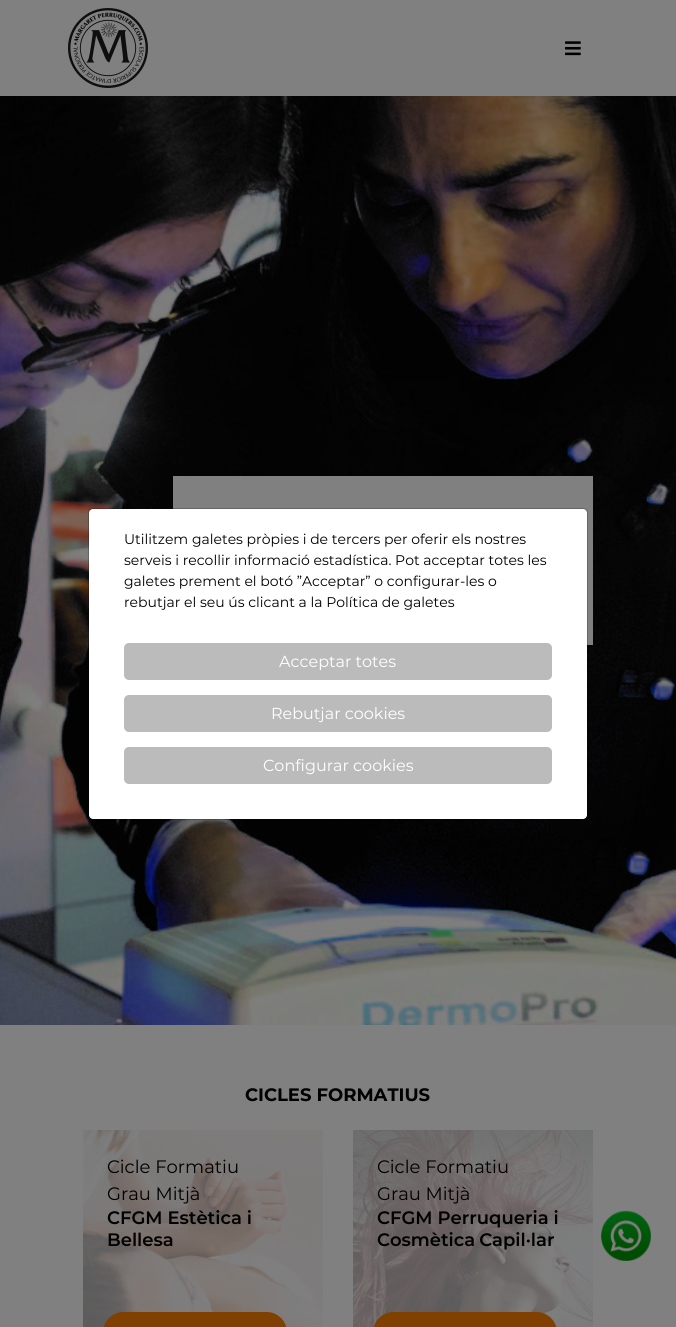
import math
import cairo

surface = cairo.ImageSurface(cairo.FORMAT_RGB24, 676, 1327)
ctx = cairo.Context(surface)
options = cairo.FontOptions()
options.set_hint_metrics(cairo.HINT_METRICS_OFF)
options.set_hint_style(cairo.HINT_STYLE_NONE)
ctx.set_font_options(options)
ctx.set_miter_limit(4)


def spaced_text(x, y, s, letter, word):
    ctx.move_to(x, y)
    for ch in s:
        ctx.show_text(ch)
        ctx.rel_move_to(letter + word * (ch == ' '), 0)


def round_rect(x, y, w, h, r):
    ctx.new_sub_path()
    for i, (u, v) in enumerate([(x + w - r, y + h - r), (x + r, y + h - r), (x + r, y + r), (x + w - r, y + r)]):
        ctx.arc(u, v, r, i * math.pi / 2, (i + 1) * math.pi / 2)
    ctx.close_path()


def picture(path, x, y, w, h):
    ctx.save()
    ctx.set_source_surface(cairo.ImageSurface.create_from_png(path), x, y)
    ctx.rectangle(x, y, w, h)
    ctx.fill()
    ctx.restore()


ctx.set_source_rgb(0.502, 0.502, 0.502)
ctx.paint()
picture("img3.png", 0, 96, 676, 929)
ctx.set_source_rgb(0.502, 0.502, 0.502)
ctx.rectangle(173, 476, 420, 169)
ctx.fill()
ctx.set_source_rgb(1, 1, 1)
round_rect(89, 509, 498, 310, 4)
ctx.fill()
round_rect(88.5, 508.5, 499, 311, 4.5)
ctx.set_source_rgba(0, 0, 0, 0.2)
ctx.set_line_width(1)
ctx.stroke()
ctx.select_font_face("Montserrat")
ctx.set_font_size(14)
ctx.set_source_rgb(0, 0, 0)
ctx.move_to(124, 544)
ctx.show_text("Utilitzem galetes pròpies i de tercers per oferir els nostres")
ctx.move_to(124, 565)
ctx.show_text("serveis i recollir informació estadística. Pot acceptar totes les")
ctx.move_to(124, 586)
ctx.show_text("galetes prement el botó ”Acceptar” o configurar-les o")
ctx.move_to(124, 607)
ctx.show_text("rebutjar el seu ús clicant a la Política de galetes")
ctx.set_source_rgb(0.733, 0.733, 0.733)
round_rect(124, 643, 428, 37, 5)
ctx.fill()
ctx.set_font_size(16)
ctx.set_source_rgb(1, 1, 1)
ctx.move_to(279, 667)
ctx.show_text("Acceptar totes")
ctx.set_source_rgb(0.733, 0.733, 0.733)
round_rect(124, 695, 428, 37, 5)
ctx.fill()
ctx.set_source_rgb(1, 1, 1)
ctx.move_to(271, 719)
ctx.show_text("Rebutjar cookies")
ctx.set_source_rgb(0.733, 0.733, 0.733)
round_rect(124, 747, 428, 37, 5)
ctx.fill()
ctx.set_source_rgb(1, 1, 1)
ctx.move_to(263, 771)
ctx.show_text("Configurar cookies")
picture("img1.png", 68, 8, 80, 80)
picture("img2.png", 565, 41, 16, 15)
ctx.select_font_face("Montserrat", cairo.FONT_SLANT_NORMAL, cairo.FONT_WEIGHT_BOLD)
ctx.set_font_size(18)
ctx.set_source_rgb(0, 0, 0)
ctx.move_to(245, 1101)
ctx.show_text("CICLES FORMATIUS")
picture("img4.png", 83, 1130, 240, 197)
ctx.select_font_face("Montserrat")
ctx.move_to(107, 1173)
ctx.show_text("Cicle Formatiu")
ctx.move_to(107, 1200)
ctx.show_text("Grau Mitjà")
ctx.select_font_face("Montserrat SemiBold")
ctx.move_to(107, 1224)
ctx.show_text("CFGM Estètica i")
ctx.move_to(107, 1246)
ctx.show_text("Bellesa")
ctx.set_source_rgb(0.502, 0.251, 0)
round_rect(103, 1312, 184, 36, 20.5)
ctx.fill()
picture("img5.png", 353, 1130, 240, 197)
ctx.select_font_face("Montserrat")
ctx.set_source_rgb(0, 0, 0)
ctx.move_to(377, 1173)
ctx.show_text("Cicle Formatiu")
ctx.move_to(377, 1200)
ctx.show_text("Grau Mitjà")
ctx.select_font_face("Montserrat SemiBold")
ctx.move_to(377, 1224)
ctx.show_text("CFGM Perruqueria i")
spaced_text(377, 1246, "Cosmètica Capil·lar", 0, -1)
ctx.set_source_rgb(0.502, 0.251, 0)
round_rect(373, 1312, 184, 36, 20.5)
ctx.fill()
picture("img6.png", 601, 1210, 50, 51)
surface.write_to_png("page.png")
